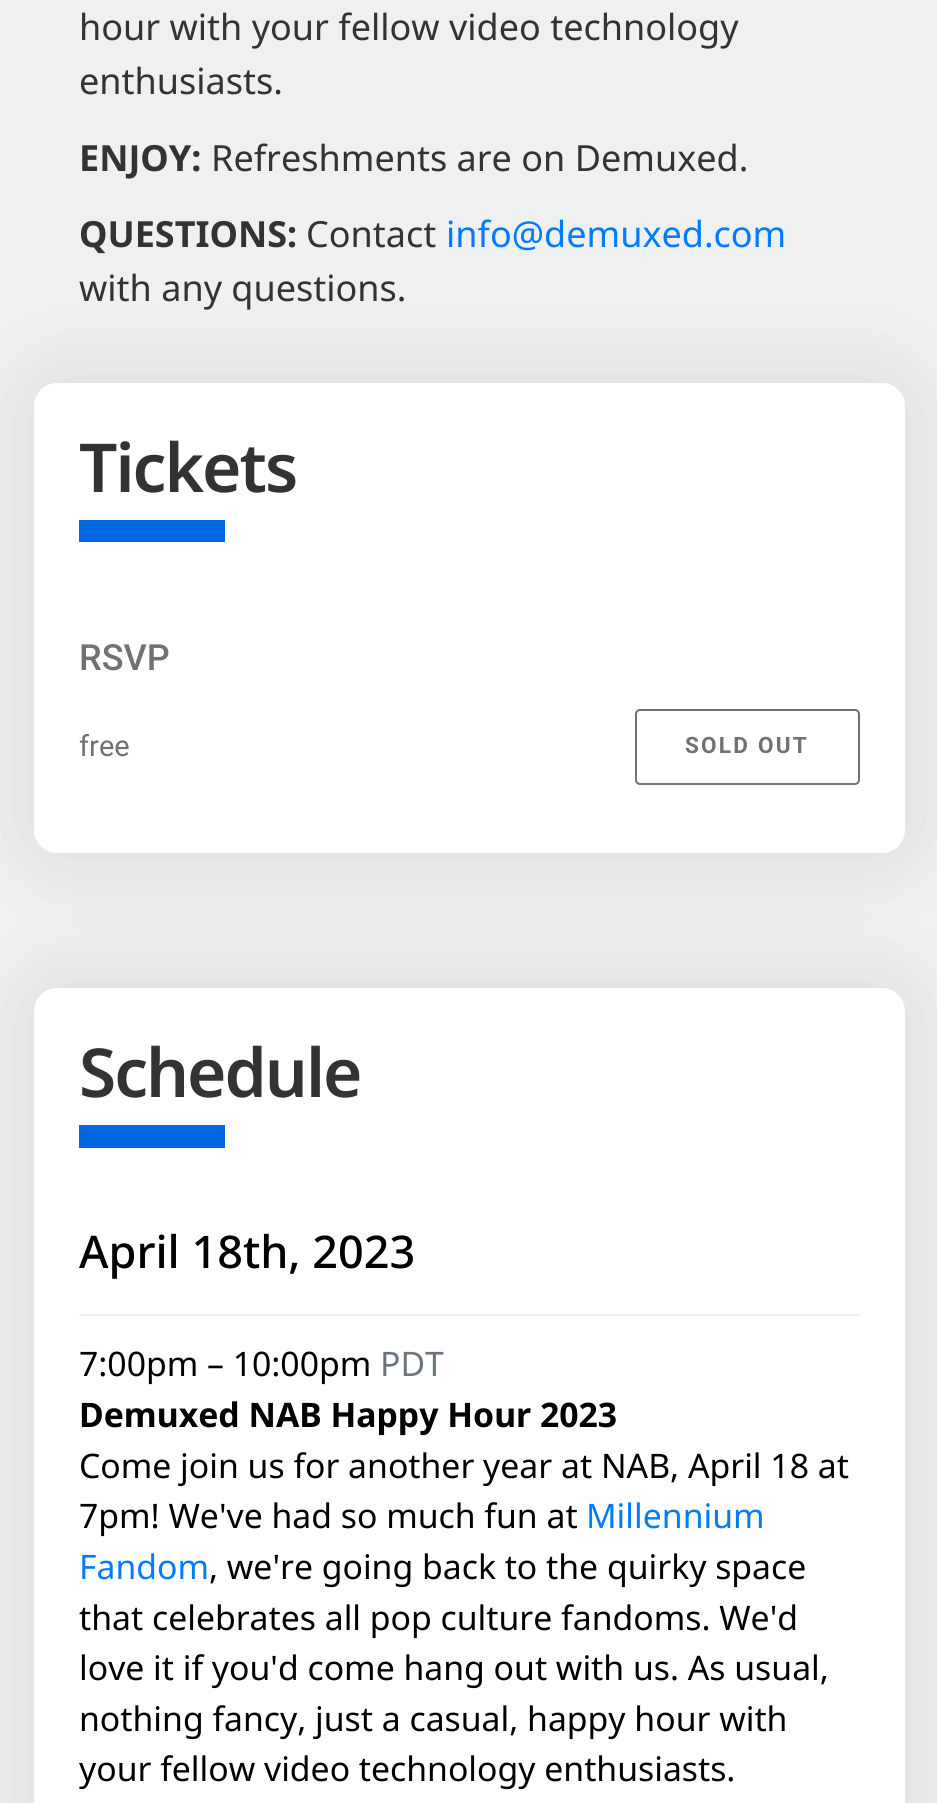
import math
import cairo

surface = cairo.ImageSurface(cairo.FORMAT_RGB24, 937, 1803)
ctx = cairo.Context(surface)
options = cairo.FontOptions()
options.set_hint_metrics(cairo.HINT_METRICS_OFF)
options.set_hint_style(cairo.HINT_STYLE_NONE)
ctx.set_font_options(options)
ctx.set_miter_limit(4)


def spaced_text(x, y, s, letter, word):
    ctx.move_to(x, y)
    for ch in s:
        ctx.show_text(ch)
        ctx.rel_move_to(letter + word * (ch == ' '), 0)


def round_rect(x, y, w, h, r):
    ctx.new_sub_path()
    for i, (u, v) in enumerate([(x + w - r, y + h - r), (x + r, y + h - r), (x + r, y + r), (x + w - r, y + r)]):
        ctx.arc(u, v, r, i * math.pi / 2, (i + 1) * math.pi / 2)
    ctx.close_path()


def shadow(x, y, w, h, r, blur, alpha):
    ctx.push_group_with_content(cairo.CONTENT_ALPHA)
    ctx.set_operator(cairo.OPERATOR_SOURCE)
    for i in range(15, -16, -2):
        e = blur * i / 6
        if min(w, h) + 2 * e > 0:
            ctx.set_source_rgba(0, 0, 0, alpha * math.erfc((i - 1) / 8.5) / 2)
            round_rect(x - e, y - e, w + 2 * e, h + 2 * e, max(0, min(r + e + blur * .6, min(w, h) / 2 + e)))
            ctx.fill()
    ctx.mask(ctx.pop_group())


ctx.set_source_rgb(0.937, 0.941, 0.949)
ctx.paint()
ctx.select_font_face("Noto Sans")
ctx.set_font_size(36)
ctx.set_source_rgb(0.2, 0.2, 0.2)
ctx.move_to(79, 40)
ctx.show_text("hour with your fellow video technology")
ctx.move_to(79, 94)
ctx.show_text("enthusiasts.")
ctx.select_font_face("Noto Sans", cairo.FONT_SLANT_NORMAL, cairo.FONT_WEIGHT_BOLD)
ctx.move_to(79, 171)
ctx.show_text("ENJOY:")
ctx.select_font_face("Noto Sans")
ctx.move_to(211, 171)
ctx.show_text("Refreshments are on Demuxed.")
ctx.select_font_face("Noto Sans", cairo.FONT_SLANT_NORMAL, cairo.FONT_WEIGHT_BOLD)
ctx.move_to(79, 247)
ctx.show_text("QUESTIONS:")
ctx.select_font_face("Noto Sans")
ctx.move_to(306, 247)
ctx.show_text("Contact")
ctx.set_source_rgb(0, 0.482, 1)
ctx.move_to(446, 247)
ctx.show_text("info@demuxed.com")
ctx.set_source_rgb(0.2, 0.2, 0.2)
ctx.move_to(79, 301)
ctx.show_text("with any questions.")
ctx.set_source_rgb(0, 0, 0)
shadow(34, 383, 871, 470, 23, 45, 0.1)
ctx.set_source_rgb(1, 1, 1)
round_rect(34, 383, 871, 470, 23)
ctx.fill()
ctx.select_font_face("Noto Sans SemiBold")
ctx.set_font_size(67.5)
ctx.set_source_rgb(0.2, 0.2, 0.2)
spaced_text(79, 492, "Tickets", -2, 0)
ctx.set_source_rgb(0, 0.404, 0.882)
ctx.rectangle(79, 520, 146, 22)
ctx.fill()
ctx.select_font_face("Roboto Medium")
ctx.set_font_size(36)
ctx.set_source_rgb(0.443, 0.439, 0.459)
ctx.move_to(79, 670)
ctx.show_text("RSVP")
ctx.select_font_face("Roboto")
ctx.set_font_size(29)
ctx.move_to(79, 756)
ctx.show_text("free")
round_rect(636, 710, 223, 74, 4)
ctx.stroke()
ctx.select_font_face("Roboto", cairo.FONT_SLANT_NORMAL, cairo.FONT_WEIGHT_BOLD)
ctx.set_font_size(22.5)
spaced_text(685, 753, "SOLD OUT", 2.25, 0)
ctx.set_source_rgb(0, 0, 0)
shadow(34, 988, 871, 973, 23, 45, 0.1)
ctx.set_source_rgb(1, 1, 1)
round_rect(34, 988, 871, 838, 23)
ctx.fill()
ctx.select_font_face("Noto Sans SemiBold")
ctx.set_font_size(67.5)
ctx.set_source_rgb(0.2, 0.2, 0.2)
spaced_text(79, 1097, "Schedule", -2, 0)
ctx.set_source_rgb(0, 0.404, 0.882)
ctx.rectangle(79, 1125, 146, 23)
ctx.fill()
ctx.select_font_face("Noto Sans Medium")
ctx.set_font_size(45)
ctx.set_source_rgb(0, 0, 0)
ctx.move_to(79, 1268)
ctx.show_text("April 18th, 2023")
ctx.set_source_rgb(0.937, 0.941, 0.949)
ctx.rectangle(79, 1314, 781, 2)
ctx.fill()
ctx.select_font_face("Noto Sans")
ctx.set_font_size(33.75)
ctx.set_source_rgb(0, 0, 0)
ctx.move_to(79, 1376)
ctx.show_text("7:00pm – 10:00pm")
ctx.set_source_rgb(0.424, 0.459, 0.49)
ctx.move_to(380, 1376)
ctx.show_text("PDT")
ctx.select_font_face("Noto Sans", cairo.FONT_SLANT_NORMAL, cairo.FONT_WEIGHT_BOLD)
ctx.set_source_rgb(0, 0, 0)
ctx.move_to(79, 1427)
ctx.show_text("Demuxed NAB Happy Hour 2023")
ctx.select_font_face("Noto Sans")
ctx.move_to(79, 1478)
ctx.show_text("Come join us for another year at NAB, April 18 at")
ctx.move_to(79, 1528)
ctx.show_text("7pm! We've had so much fun at")
ctx.set_source_rgb(0, 0.482, 1)
ctx.move_to(586, 1528)
ctx.show_text("Millennium")
ctx.move_to(79, 1579)
ctx.show_text("Fandom")
ctx.set_source_rgb(0, 0, 0)
ctx.move_to(209, 1579)
ctx.show_text(", we're going back to the quirky space")
ctx.move_to(79, 1630)
ctx.show_text("that celebrates all pop culture fandoms. We'd")
ctx.move_to(79, 1680)
ctx.show_text("love it if you'd come hang out with us. As usual,")
ctx.move_to(79, 1731)
ctx.show_text("nothing fancy, just a casual, happy hour with")
ctx.move_to(79, 1781)
ctx.show_text("your fellow video technology enthusiasts.")
surface.write_to_png("page.png")
